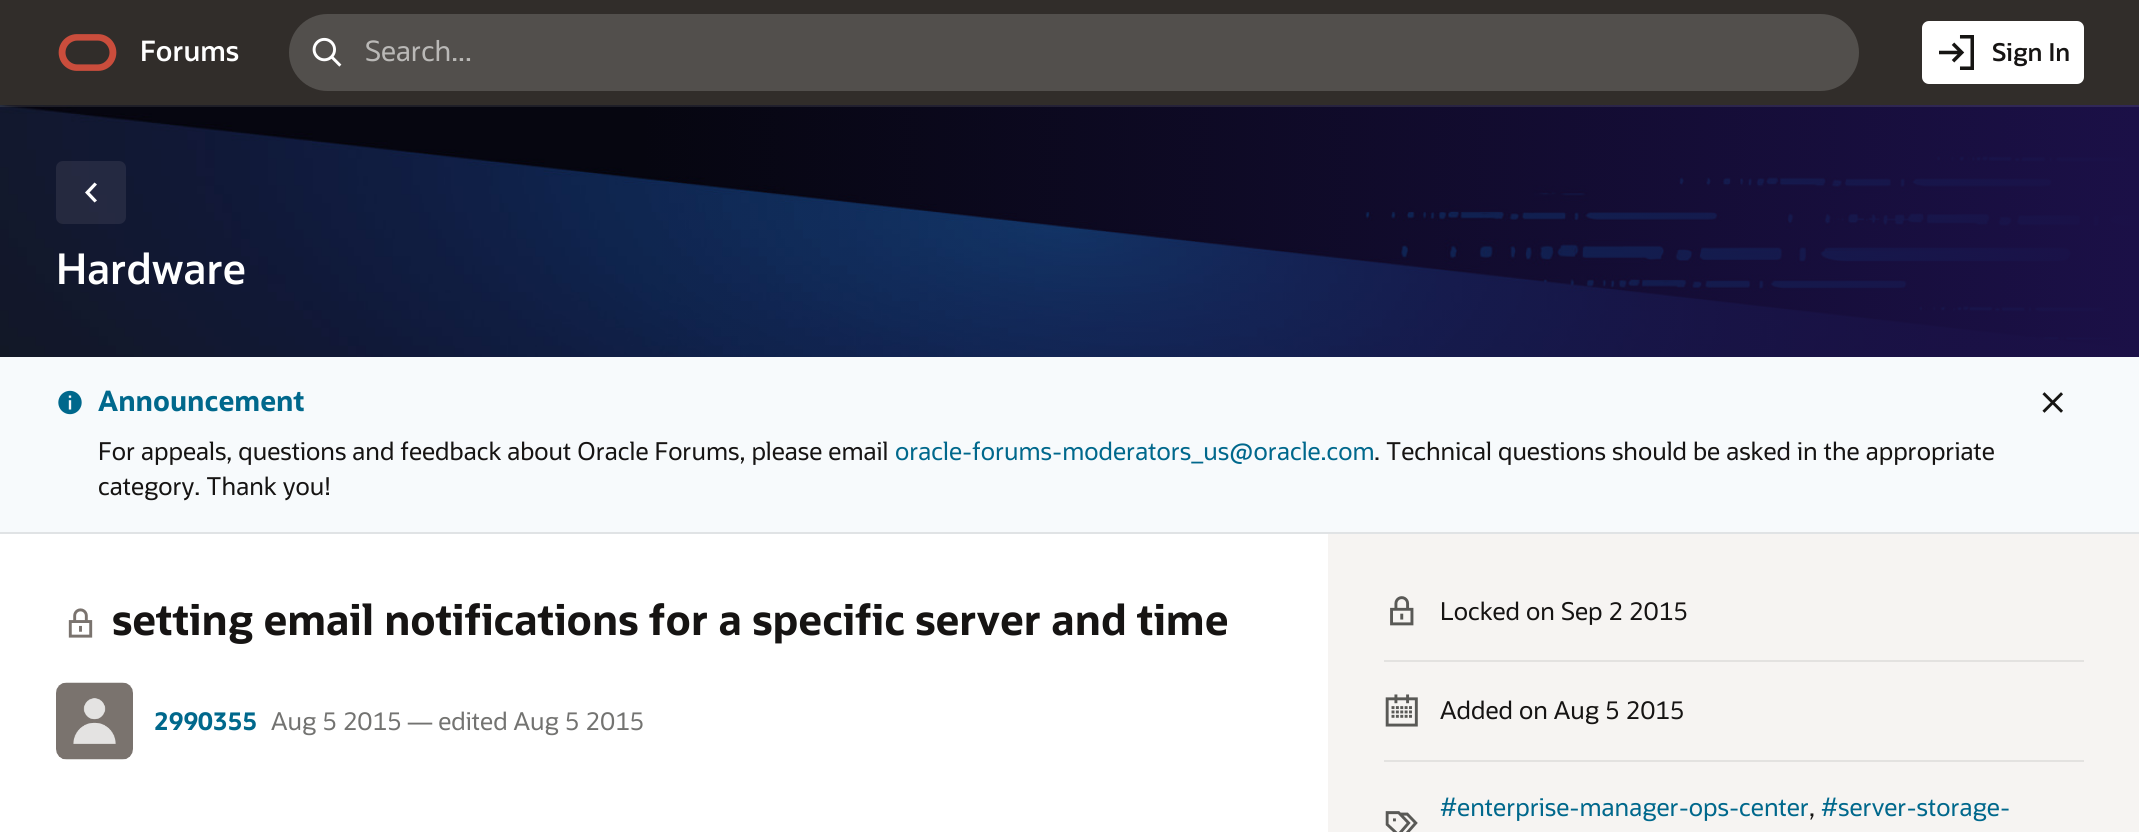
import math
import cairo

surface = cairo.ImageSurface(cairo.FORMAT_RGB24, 2139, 832)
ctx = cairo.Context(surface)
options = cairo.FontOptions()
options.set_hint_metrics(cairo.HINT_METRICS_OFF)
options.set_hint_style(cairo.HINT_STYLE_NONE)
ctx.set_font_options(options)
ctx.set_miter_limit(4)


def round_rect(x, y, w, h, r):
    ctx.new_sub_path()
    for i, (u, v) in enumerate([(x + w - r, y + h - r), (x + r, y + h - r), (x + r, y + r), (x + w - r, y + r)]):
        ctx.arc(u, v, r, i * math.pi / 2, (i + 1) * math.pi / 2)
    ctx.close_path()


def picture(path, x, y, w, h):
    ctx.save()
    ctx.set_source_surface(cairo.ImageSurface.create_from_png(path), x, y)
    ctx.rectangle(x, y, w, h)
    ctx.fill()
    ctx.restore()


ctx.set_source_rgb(1, 1, 1)
ctx.paint()
picture("img4.png", 0, 105, 2139, 252)
ctx.rectangle(-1, -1, 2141, 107)
ctx.set_source_rgba(1, 1, 1, 0.1)
ctx.stroke()
ctx.set_source_rgb(0.192, 0.176, 0.165)
ctx.rectangle(0, 0, 2139, 105)
ctx.fill()
picture("img1.png", 58, 34, 59, 37)
ctx.select_font_face("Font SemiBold")
ctx.set_font_size(28)
ctx.set_source_rgb(1, 1, 1)
ctx.move_to(140, 61)
ctx.show_text("Forums")
ctx.set_source_rgb(0.322, 0.31, 0.298)
round_rect(289, 14, 1570, 77, 38.5)
ctx.fill()
picture("img2.png", 312, 37, 30, 30)
ctx.select_font_face("Font")
ctx.set_source_rgb(0.729, 0.725, 0.718)
ctx.move_to(365, 61)
ctx.show_text("Search...")
ctx.set_source_rgb(1, 1, 1)
round_rect(1922, 21, 162, 63, 7)
ctx.fill()
picture("img3.png", 1939, 35, 35, 35)
ctx.select_font_face("Font SemiBold")
ctx.set_font_size(24.5)
ctx.set_source_rgb(0.086, 0.082, 0.075)
ctx.move_to(1992, 61)
ctx.show_text("Sign In")
ctx.set_source_rgba(0.984, 0.976, 0.973, 0.08)
round_rect(56, 161, 70, 63, 7)
ctx.fill()
ctx.set_source_rgb(1, 1, 1)
ctx.new_path()
ctx.move_to(97, 200.5)
ctx.line_to(94.5, 202.5)
ctx.line_to(85, 192.5)
ctx.line_to(94.5, 182.5)
ctx.line_to(97, 184.5)
ctx.line_to(89.5, 192.5)
ctx.close_path()
ctx.fill()
ctx.set_font_size(42)
ctx.move_to(56, 284)
ctx.show_text("Hardware")
ctx.set_source_rgb(0.965, 0.98, 0.988)
ctx.rectangle(0, 357, 2139, 175)
ctx.fill()
ctx.set_source_rgb(0.878, 0.89, 0.898)
ctx.rectangle(0, 532, 2139, 2)
ctx.fill()
picture("img5.png", 58, 390, 24, 25)
ctx.select_font_face("Font", cairo.FONT_SLANT_NORMAL, cairo.FONT_WEIGHT_BOLD)
ctx.set_font_size(28)
ctx.set_source_rgb(0, 0.408, 0.549)
ctx.move_to(98, 411)
ctx.show_text("Announcement")
ctx.select_font_face("Font")
ctx.set_font_size(24.5)
ctx.set_source_rgb(0.086, 0.082, 0.075)
ctx.move_to(98, 460)
ctx.show_text("For appeals, questions and feedback about Oracle Forums, please email")
ctx.set_source_rgb(0, 0.408, 0.549)
ctx.move_to(895, 460)
ctx.show_text("oracle-forums-moderators_us@oracle.com")
ctx.set_source_rgb(0.086, 0.082, 0.075)
ctx.move_to(1374, 460)
ctx.show_text(". Technical questions should be asked in the appropriate")
ctx.move_to(98, 495)
ctx.show_text("category. Thank you!")
picture("img6.png", 2042, 392, 21, 21)
picture("img7.png", 68, 608, 25, 30)
ctx.select_font_face("Font", cairo.FONT_SLANT_NORMAL, cairo.FONT_WEIGHT_BOLD)
ctx.set_font_size(42)
ctx.move_to(112, 635)
ctx.show_text("setting email notifications for a specific server and time")
picture("img8.png", 56, 682, 77, 78)
ctx.set_font_size(24.5)
ctx.set_source_rgb(0, 0.408, 0.549)
ctx.move_to(154, 730)
ctx.show_text("2990355")
ctx.select_font_face("Font")
ctx.set_source_rgb(0.451, 0.451, 0.443)
ctx.move_to(271, 730)
ctx.show_text("Aug 5 2015 — edited Aug 5 2015")
ctx.set_source_rgb(0.961, 0.957, 0.949)
ctx.rectangle(1328, 534, 811, 298)
ctx.fill()
ctx.set_source_rgb(0.89, 0.886, 0.878)
ctx.rectangle(1384, 660, 700, 2)
ctx.fill()
picture("img9.png", 1390, 596, 24, 30)
ctx.set_source_rgb(0.086, 0.082, 0.075)
ctx.move_to(1440, 620)
ctx.show_text("Locked on Sep 2 2015")
ctx.set_source_rgb(0.89, 0.886, 0.878)
ctx.rectangle(1384, 760, 700, 2)
ctx.fill()
picture("img10.png", 1385, 694, 33, 33)
ctx.set_source_rgb(0.086, 0.082, 0.075)
ctx.move_to(1440, 719)
ctx.show_text("Added on Aug 5 2015")
picture("img11.png", 1385, 811, 33, 21)
ctx.set_source_rgb(0, 0.408, 0.549)
ctx.move_to(1440, 816)
ctx.show_text("#enterprise-manager-ops-center")
ctx.set_source_rgb(0.086, 0.082, 0.075)
ctx.move_to(1809, 816)
ctx.show_text(",")
ctx.set_source_rgb(0, 0.408, 0.549)
ctx.move_to(1821, 816)
ctx.show_text("#server-storage-")
surface.write_to_png("page.png")
